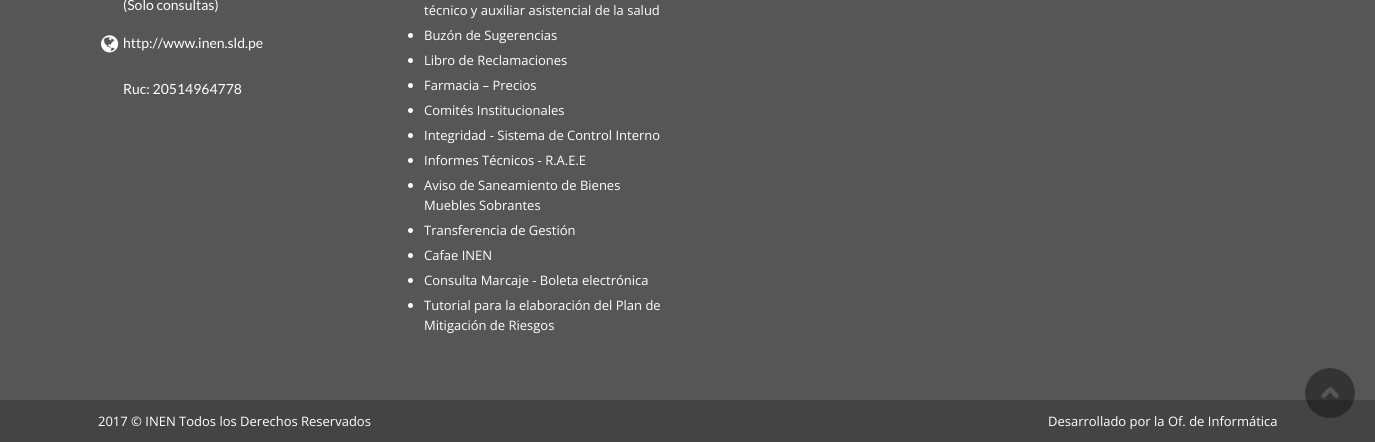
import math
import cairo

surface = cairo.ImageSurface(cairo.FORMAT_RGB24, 1375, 442)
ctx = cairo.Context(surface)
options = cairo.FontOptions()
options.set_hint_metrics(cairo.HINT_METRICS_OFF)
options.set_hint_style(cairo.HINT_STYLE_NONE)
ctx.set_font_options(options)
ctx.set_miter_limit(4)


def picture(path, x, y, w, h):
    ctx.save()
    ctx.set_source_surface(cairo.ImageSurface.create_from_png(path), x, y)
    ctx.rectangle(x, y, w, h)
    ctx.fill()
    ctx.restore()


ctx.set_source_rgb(0.337, 0.337, 0.337)
ctx.paint()
ctx.select_font_face("Lato")
ctx.set_font_size(14)
ctx.set_source_rgb(1, 1, 1)
ctx.move_to(123, 10)
ctx.show_text("(Solo consultas)")
picture("img1.png", 101, 35, 18, 18)
ctx.move_to(123, 48)
ctx.show_text("http://www.inen.sld.pe")
ctx.move_to(123, 94)
ctx.show_text("Ruc: 20514964778")
ctx.select_font_face("Open Sans")
ctx.set_font_size(13)
ctx.move_to(424, 15)
ctx.show_text("técnico y auxiliar asistencial de la salud")
ctx.new_path()
ctx.arc(410.5, 35.5, 2.5, 0, 2 * math.pi)
ctx.fill()
ctx.move_to(424, 40)
ctx.show_text("Buzón de Sugerencias")
ctx.new_path()
ctx.arc(410.5, 60.5, 2.5, 0, 2 * math.pi)
ctx.fill()
ctx.move_to(424, 65)
ctx.show_text("Libro de Reclamaciones")
ctx.new_path()
ctx.arc(410.5, 85.5, 2.5, 0, 2 * math.pi)
ctx.fill()
ctx.move_to(424, 90)
ctx.show_text("Farmacia – Precios")
ctx.new_path()
ctx.arc(410.5, 110.5, 2.5, 0, 2 * math.pi)
ctx.fill()
ctx.move_to(424, 115)
ctx.show_text("Comités Institucionales")
ctx.new_path()
ctx.arc(410.5, 135.5, 2.5, 0, 2 * math.pi)
ctx.fill()
ctx.move_to(424, 140)
ctx.show_text("Integridad - Sistema de Control Interno")
ctx.new_path()
ctx.arc(410.5, 160.5, 2.5, 0, 2 * math.pi)
ctx.fill()
ctx.move_to(424, 165)
ctx.show_text("Informes Técnicos - R.A.E.E")
ctx.new_path()
ctx.arc(410.5, 185.5, 2.5, 0, 2 * math.pi)
ctx.fill()
ctx.move_to(424, 190)
ctx.show_text("Aviso de Saneamiento de Bienes")
ctx.move_to(424, 210)
ctx.show_text("Muebles Sobrantes")
ctx.new_path()
ctx.arc(410.5, 230.5, 2.5, 0, 2 * math.pi)
ctx.fill()
ctx.move_to(424, 235)
ctx.show_text("Transferencia de Gestión")
ctx.new_path()
ctx.arc(410.5, 255.5, 2.5, 0, 2 * math.pi)
ctx.fill()
ctx.move_to(424, 260)
ctx.show_text("Cafae INEN")
ctx.new_path()
ctx.arc(410.5, 280.5, 2.5, 0, 2 * math.pi)
ctx.fill()
ctx.move_to(424, 285)
ctx.show_text("Consulta Marcaje - Boleta electrónica")
ctx.new_path()
ctx.arc(410.5, 305.5, 2.5, 0, 2 * math.pi)
ctx.fill()
ctx.move_to(424, 310)
ctx.show_text("Tutorial para la elaboración del Plan de")
ctx.move_to(424, 330)
ctx.show_text("Mitigación de Riesgos")
ctx.set_source_rgb(0.267, 0.267, 0.267)
ctx.rectangle(0, 400, 1375, 42)
ctx.fill()
ctx.set_source_rgb(1, 1, 1)
ctx.move_to(98, 426)
ctx.show_text("2017 © INEN Todos los Derechos Reservados")
ctx.move_to(1048, 426)
ctx.show_text("Desarrollado por la Of. de Informática")
picture("img2.png", 1305, 368, 50, 50)
surface.write_to_png("page.png")
